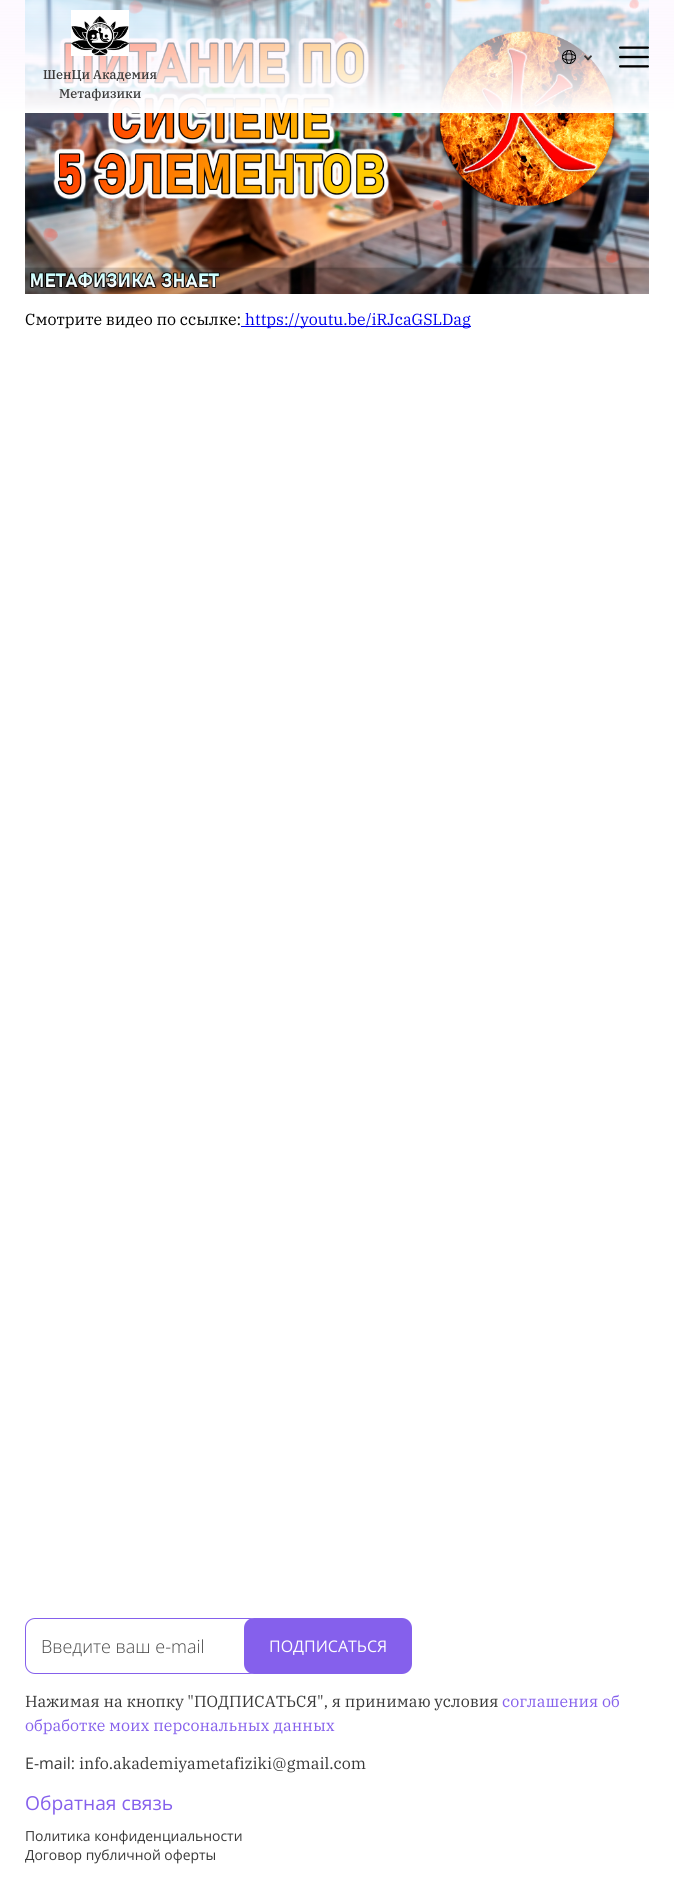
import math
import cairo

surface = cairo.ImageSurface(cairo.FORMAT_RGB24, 674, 1900)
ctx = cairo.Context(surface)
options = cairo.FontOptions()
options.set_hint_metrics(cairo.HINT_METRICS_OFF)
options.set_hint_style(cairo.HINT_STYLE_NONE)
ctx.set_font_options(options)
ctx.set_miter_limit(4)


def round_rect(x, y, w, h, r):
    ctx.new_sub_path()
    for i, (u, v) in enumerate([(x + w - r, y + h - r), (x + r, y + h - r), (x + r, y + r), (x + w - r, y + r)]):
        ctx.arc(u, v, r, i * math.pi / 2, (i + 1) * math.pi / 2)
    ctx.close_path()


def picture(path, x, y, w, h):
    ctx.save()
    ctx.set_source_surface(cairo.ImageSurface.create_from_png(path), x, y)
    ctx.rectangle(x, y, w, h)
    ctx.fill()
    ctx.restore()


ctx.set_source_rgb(1, 1, 1)
ctx.paint()
picture("img4.png", 25, 0, 624, 294)
gradient = cairo.LinearGradient(337, 0, 337, 113)
gradient.add_color_stop_rgba(0, 0.984, 0.941, 0.996, 0.4)
gradient.add_color_stop_rgba(1, 1, 1, 1, 1)
ctx.set_source(gradient)
ctx.rectangle(0, 0, 674, 113)
ctx.fill()
picture("img1.png", 562, 50, 14, 14)
ctx.set_source_rgb(0.2, 0.2, 0.2)
ctx.new_path()
ctx.move_to(591, 55)
ctx.line_to(592, 56.5)
ctx.line_to(588, 60.5)
ctx.line_to(586.5, 59.5)
ctx.close_path()
ctx.fill()
ctx.new_path()
ctx.move_to(585, 55)
ctx.line_to(589.5, 59.5)
ctx.line_to(588, 60.5)
ctx.line_to(584, 56.5)
ctx.close_path()
ctx.fill()
picture("img2.png", 619, 46, 30, 22)
picture("img3.png", 71, 10, 58, 46)
ctx.select_font_face("IBM Plex Serif Medium")
ctx.set_font_size(12.75)
ctx.set_source_rgb(0.22, 0.22, 0.22)
ctx.move_to(43, 79)
ctx.show_text("ШенЦи Академия")
ctx.move_to(59, 98)
ctx.show_text("Метафизики")
ctx.select_font_face("IBM Plex Serif")
ctx.set_font_size(16)
ctx.set_source_rgb(0, 0, 0)
ctx.move_to(25, 325)
ctx.show_text("Смотрите видео по ссылке:")
ctx.set_source_rgb(0, 0, 0.933)
ctx.rectangle(241, 326, 230, 1)
ctx.fill()
ctx.move_to(245, 325)
ctx.show_text("https://youtu.be/iRJcaGSLDag")
round_rect(25.5, 1618.5, 233, 55, 9.5)
ctx.set_source_rgb(0.522, 0.376, 0.925)
ctx.set_line_width(1)
ctx.stroke()
ctx.select_font_face("Open Sans Light")
ctx.set_font_size(18)
ctx.set_source_rgb(0.286, 0.286, 0.286)
ctx.move_to(41, 1653)
ctx.show_text("Введите ваш e-mail")
ctx.set_source_rgb(0.522, 0.376, 0.925)
round_rect(244, 1618, 168, 56, 10)
ctx.fill()
ctx.select_font_face("Open Sans")
ctx.set_font_size(16)
ctx.set_source_rgb(1, 1, 1)
ctx.move_to(269, 1652)
ctx.show_text("ПОДПИСАТЬСЯ")
ctx.select_font_face("IBM Plex Serif")
ctx.set_source_rgb(0.22, 0.22, 0.22)
ctx.move_to(25, 1707)
ctx.show_text("Нажимая на кнопку \"ПОДПИСАТЬСЯ\", я принимаю условия")
ctx.set_source_rgb(0.522, 0.376, 0.925)
ctx.move_to(502, 1707)
ctx.show_text("соглашения об")
ctx.move_to(25, 1731)
ctx.show_text("обработке моих персональных данных")
ctx.select_font_face("Open Sans")
ctx.set_source_rgb(0.22, 0.22, 0.22)
ctx.move_to(25, 1769)
ctx.show_text("E-mail:")
ctx.select_font_face("IBM Plex Serif")
ctx.move_to(79, 1769)
ctx.show_text("info.akademiyametafiziki@gmail.com")
ctx.select_font_face("Open Sans")
ctx.set_font_size(19.25)
ctx.set_source_rgb(0.522, 0.376, 0.925)
ctx.move_to(25, 1810)
ctx.show_text("Обратная связь")
ctx.set_font_size(13.9)
ctx.set_source_rgb(0.22, 0.22, 0.22)
ctx.move_to(25, 1841)
ctx.show_text("Политика конфиденциальности")
ctx.move_to(25, 1860)
ctx.show_text("Договор публичной оферты")
surface.write_to_png("page.png")
